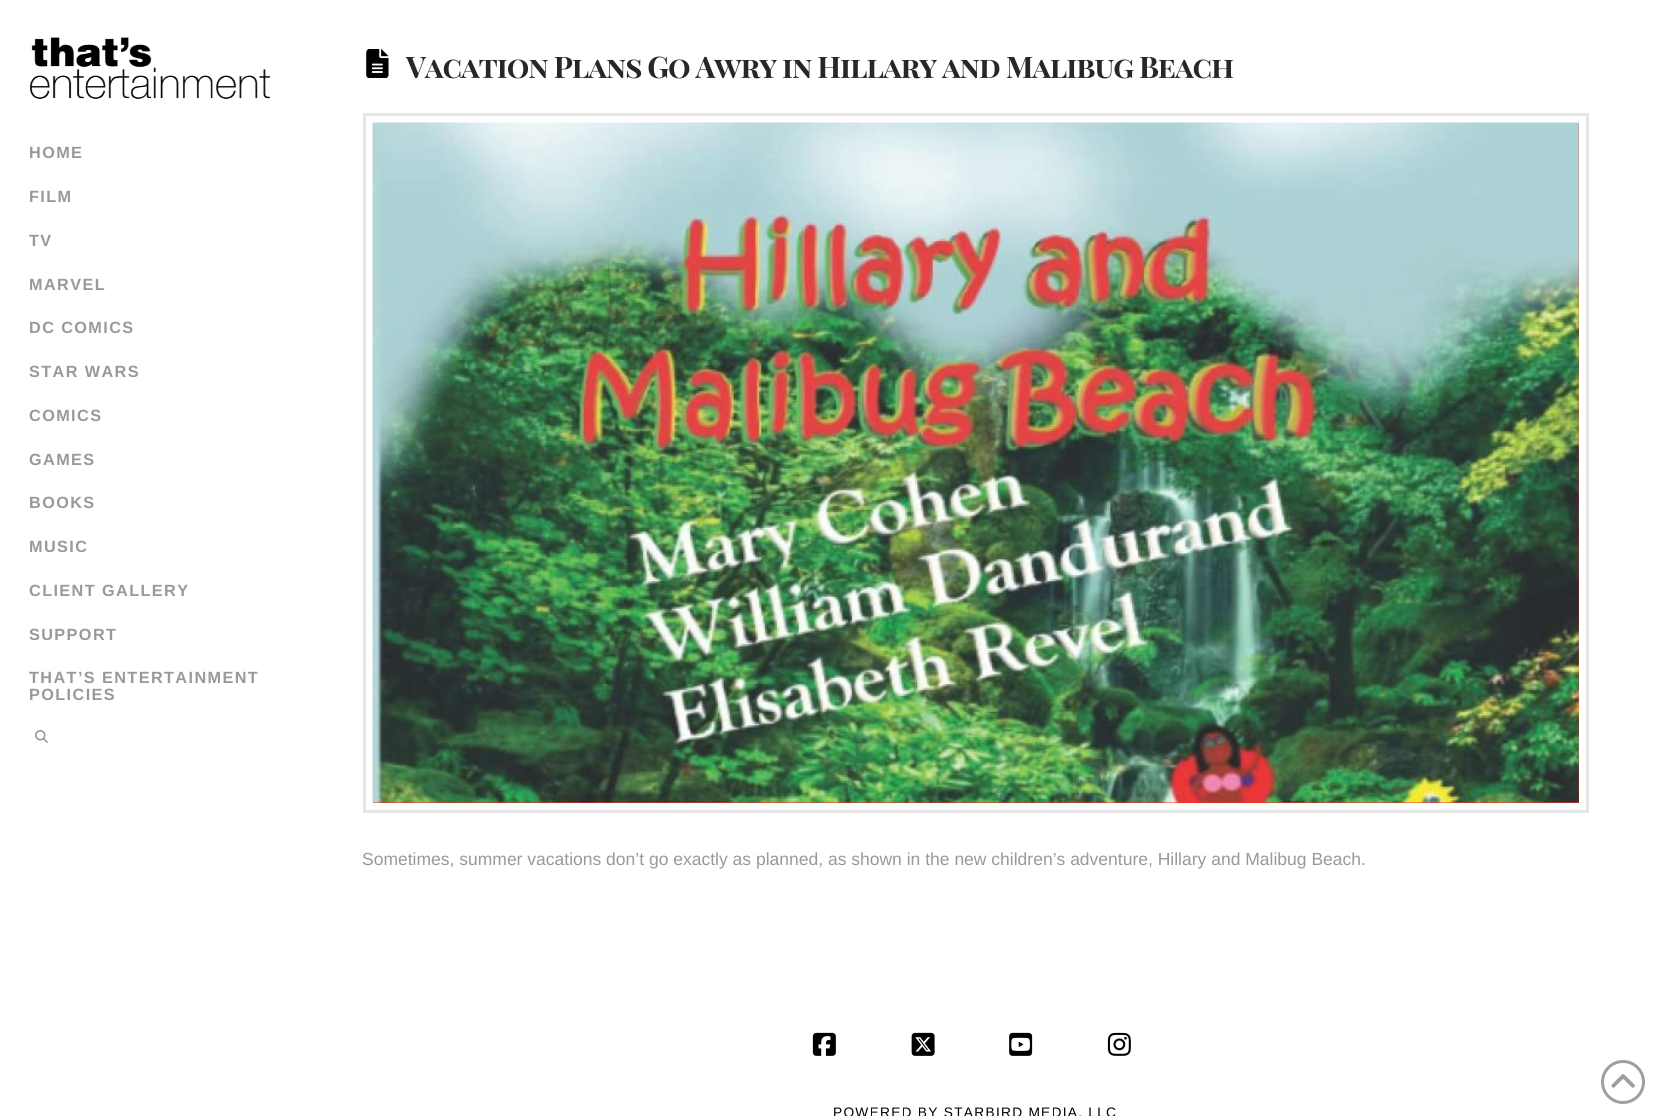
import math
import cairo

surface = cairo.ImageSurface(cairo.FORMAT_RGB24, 1657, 1116)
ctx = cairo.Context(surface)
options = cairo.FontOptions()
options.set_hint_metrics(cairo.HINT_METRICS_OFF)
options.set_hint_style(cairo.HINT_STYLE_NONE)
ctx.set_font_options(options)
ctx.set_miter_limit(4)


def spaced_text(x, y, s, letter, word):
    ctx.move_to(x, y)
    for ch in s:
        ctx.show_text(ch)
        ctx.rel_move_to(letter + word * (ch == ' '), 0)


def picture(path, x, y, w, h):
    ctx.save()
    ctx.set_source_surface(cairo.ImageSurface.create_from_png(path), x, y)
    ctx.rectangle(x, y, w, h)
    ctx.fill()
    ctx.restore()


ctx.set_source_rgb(1, 1, 1)
ctx.paint()
picture("img1.png", 30, 37, 240, 62)
ctx.select_font_face("Liberation Sans", cairo.FONT_SLANT_NORMAL, cairo.FONT_WEIGHT_BOLD)
ctx.set_font_size(16.25)
ctx.set_source_rgb(0.6, 0.6, 0.6)
spaced_text(29, 158, "HOME", 1.4, 0)
spaced_text(29, 202, "FILM", 1.4, 0)
spaced_text(29, 246, "TV", 1.4, 0)
spaced_text(29, 290, "MARVEL", 1.4, 0)
spaced_text(29, 333, "DC COMICS", 1.4, 0)
spaced_text(29, 377, "STAR WARS", 1.4, 0)
spaced_text(29, 421, "COMICS", 1.4, 0)
spaced_text(29, 465, "GAMES", 1.4, 0)
spaced_text(29, 508, "BOOKS", 1.4, 0)
spaced_text(29, 552, "MUSIC", 1.4, 0)
spaced_text(29, 596, "CLIENT GALLERY", 1.4, 0)
spaced_text(29, 640, "SUPPORT", 1.4, 0)
spaced_text(29, 683, "THAT’S ENTERTAINMENT", 1.4, 0)
spaced_text(29, 700, "POLICIES", 1.4, 0)
picture("img2.png", 35, 730, 13, 13)
picture("img3.png", 366, 49, 23, 29)
ctx.select_font_face("Playfair Display SC", cairo.FONT_SLANT_NORMAL, cairo.FONT_WEIGHT_BOLD)
ctx.set_font_size(29.75)
ctx.set_source_rgb(0.153, 0.153, 0.153)
spaced_text(406, 78, "Vacation Plans Go Awry in Hillary and Malibug Beach", -1.05, 0)
ctx.rectangle(364.5, 114.5, 1223, 697)
ctx.set_source_rgb(0.898, 0.898, 0.898)
ctx.set_line_width(3)
ctx.stroke()
ctx.set_source_rgb(1, 0.165, 0.075)
ctx.rectangle(373, 123, 1206, 680)
ctx.fill()
picture("img4.png", 372, 122, 1207, 681)
ctx.select_font_face("Liberation Sans")
ctx.set_font_size(17.5)
ctx.set_source_rgb(0.6, 0.6, 0.6)
ctx.move_to(362, 865)
ctx.show_text("Sometimes, summer vacations don’t go exactly as planned, as shown in the new children’s adventure, Hillary and Malibug Beach.")
picture("img5.png", 812, 1032, 24, 24)
picture("img6.png", 911, 1032, 24, 24)
picture("img7.png", 1009, 1032, 24, 24)
picture("img8.png", 1107, 1032, 24, 24)
ctx.set_font_size(13.75)
ctx.set_source_rgb(0, 0, 0)
spaced_text(833, 1117, "POWERED BY STARBIRD MEDIA, LLC", 1.25, 0)
ctx.new_path()
ctx.arc(1623, 1082, 20.5, 0, 2 * math.pi)
ctx.set_source_rgb(0.624, 0.624, 0.624)
ctx.stroke()
picture("img9.png", 1611, 1074, 24, 14)
surface.write_to_png("page.png")
